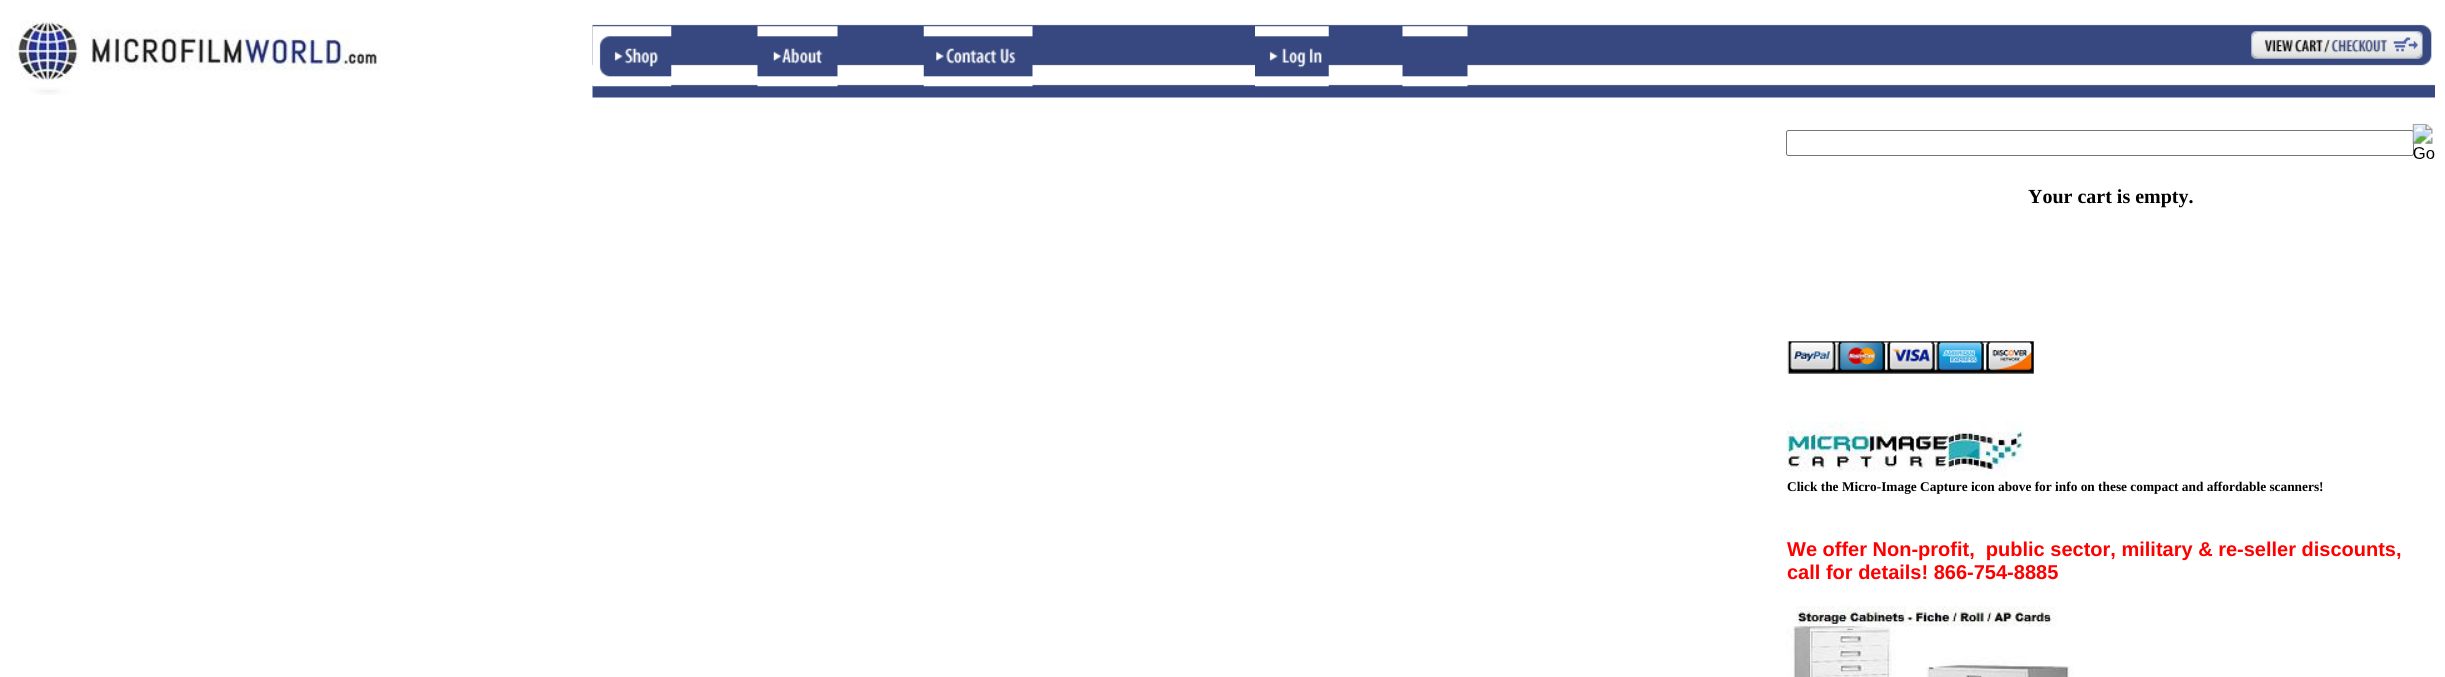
import math
import cairo

surface = cairo.ImageSurface(cairo.FORMAT_RGB24, 2445, 677)
ctx = cairo.Context(surface)
options = cairo.FontOptions()
options.set_hint_metrics(cairo.HINT_METRICS_OFF)
options.set_hint_style(cairo.HINT_STYLE_NONE)
ctx.set_font_options(options)
ctx.set_miter_limit(4)


def round_rect(x, y, w, h, r):
    ctx.new_sub_path()
    for i, (u, v) in enumerate([(x + w - r, y + h - r), (x + r, y + h - r), (x + r, y + r), (x + w - r, y + r)]):
        ctx.arc(u, v, r, i * math.pi / 2, (i + 1) * math.pi / 2)
    ctx.close_path()


def picture(path, x, y, w, h):
    ctx.save()
    ctx.set_source_surface(cairo.ImageSurface.create_from_png(path), x, y)
    ctx.rectangle(x, y, w, h)
    ctx.fill()
    ctx.restore()


ctx.set_source_rgb(1, 1, 1)
ctx.paint()
picture("img1.png", 10, 20, 370, 75)
picture("img2.png", 592, 24, 1843, 74)
picture("img3.png", 592, 26, 80, 61)
picture("img4.png", 757, 26, 81, 61)
picture("img5.png", 923, 26, 110, 61)
picture("img6.png", 1255, 26, 74, 61)
picture("img7.png", 1402, 26, 66, 61)
picture("img8.png", 2251, 24, 184, 42)
round_rect(1786.5, 130.5, 627, 25, 2)
ctx.set_source_rgb(0.463, 0.463, 0.463)
ctx.set_line_width(1)
ctx.stroke()
picture("img9.png", 2412, 123, 23, 36)
ctx.select_font_face("Liberation Serif", cairo.FONT_SLANT_NORMAL, cairo.FONT_WEIGHT_BOLD)
ctx.set_font_size(20)
ctx.set_source_rgb(0, 0, 0)
ctx.move_to(2028, 203)
ctx.show_text("Your cart is empty.")
picture("img10.png", 1787, 341, 247, 33)
picture("img11.png", 1786, 421, 238, 56)
ctx.set_font_size(13.35)
ctx.move_to(1787, 491)
ctx.show_text("Click the Micro-Image Capture icon above for info on these compact and affordable scanners!")
ctx.select_font_face("Liberation Sans", cairo.FONT_SLANT_NORMAL, cairo.FONT_WEIGHT_BOLD)
ctx.set_font_size(20)
ctx.set_source_rgb(1, 0, 0)
ctx.move_to(1787, 556)
ctx.show_text("We offer Non-profit,  public sector, military & re-seller discounts,")
ctx.move_to(1787, 579)
ctx.show_text("call for details! 866-754-8885")
picture("img12.png", 1786, 606, 288, 71)
surface.write_to_png("page.png")
